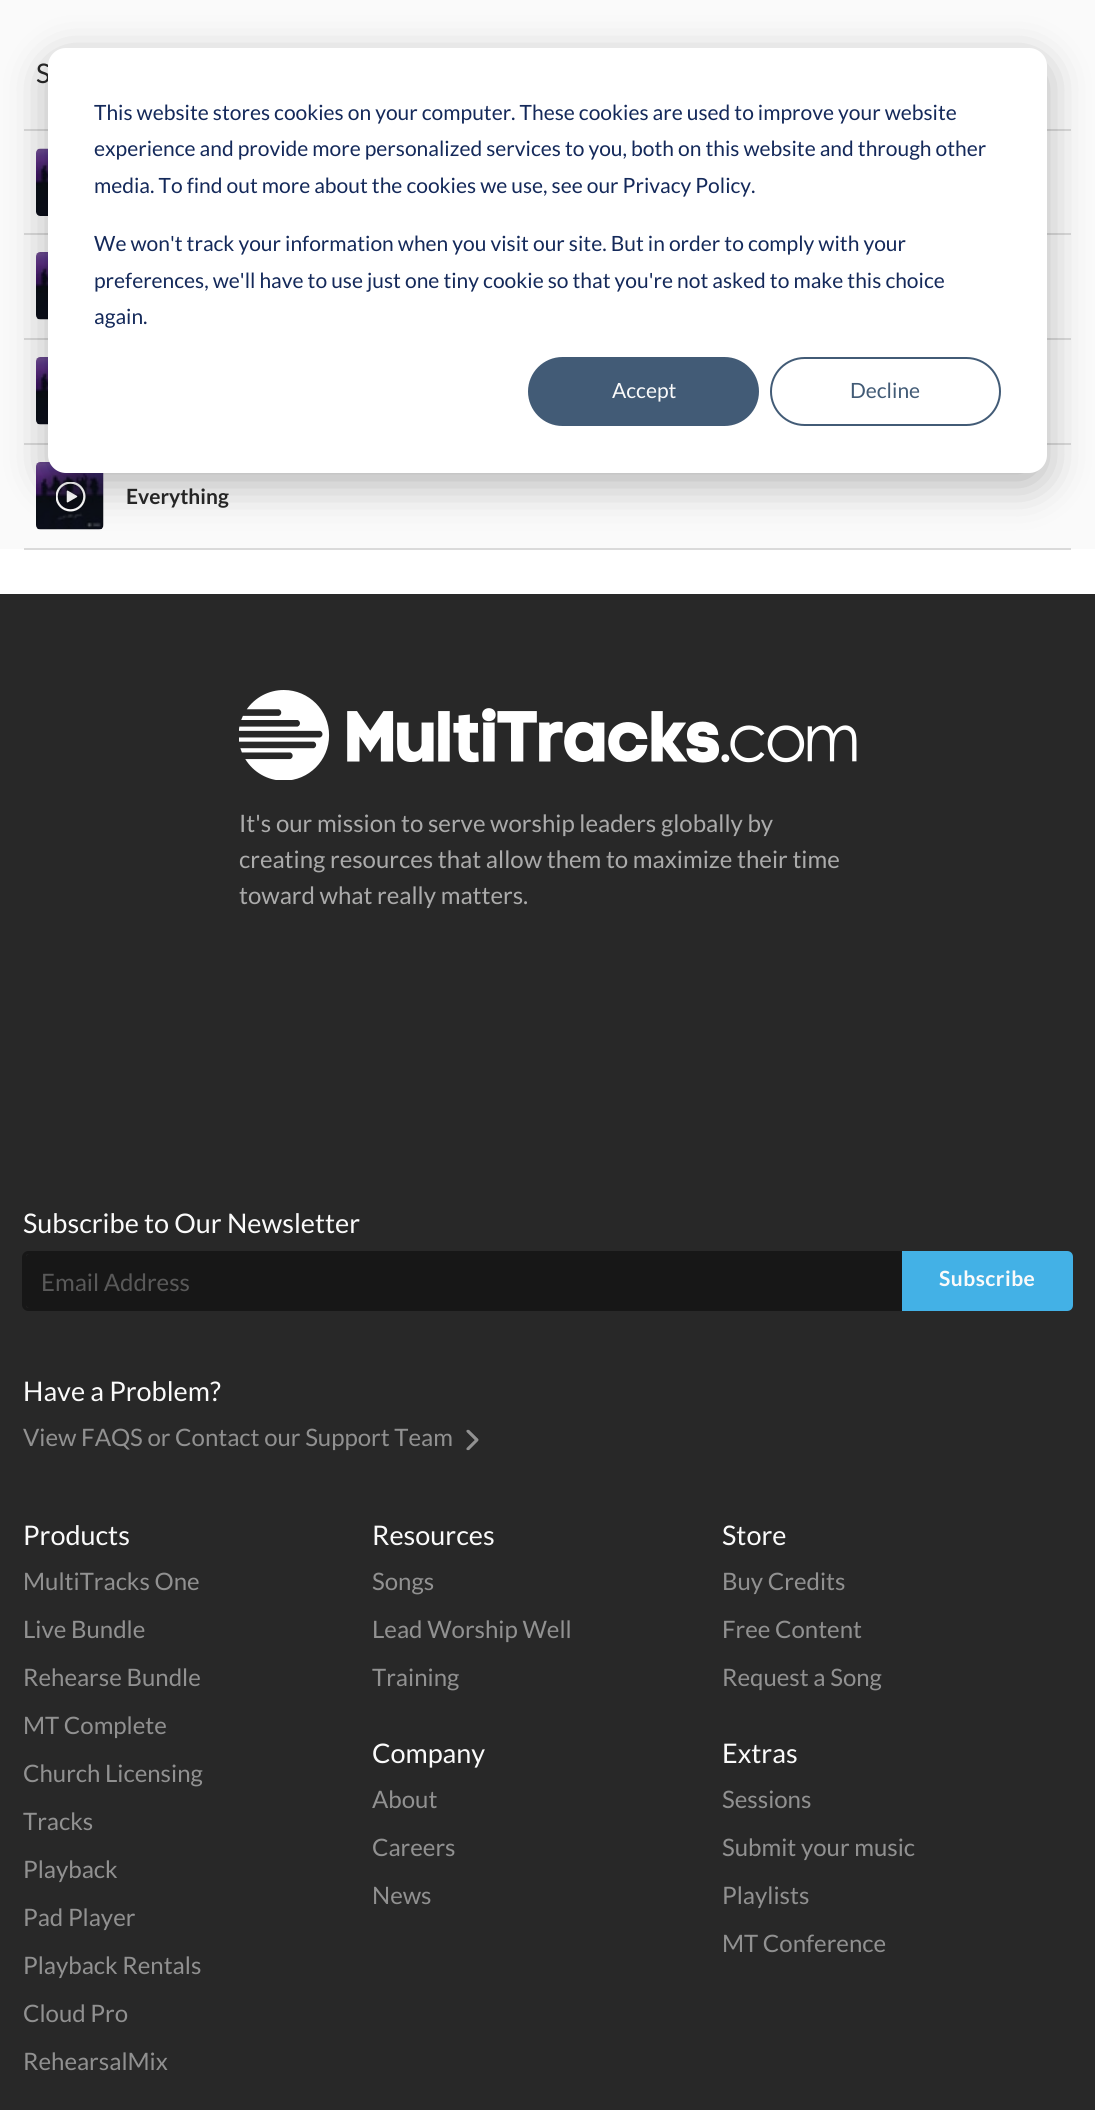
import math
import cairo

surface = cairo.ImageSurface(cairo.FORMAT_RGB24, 1095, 2110)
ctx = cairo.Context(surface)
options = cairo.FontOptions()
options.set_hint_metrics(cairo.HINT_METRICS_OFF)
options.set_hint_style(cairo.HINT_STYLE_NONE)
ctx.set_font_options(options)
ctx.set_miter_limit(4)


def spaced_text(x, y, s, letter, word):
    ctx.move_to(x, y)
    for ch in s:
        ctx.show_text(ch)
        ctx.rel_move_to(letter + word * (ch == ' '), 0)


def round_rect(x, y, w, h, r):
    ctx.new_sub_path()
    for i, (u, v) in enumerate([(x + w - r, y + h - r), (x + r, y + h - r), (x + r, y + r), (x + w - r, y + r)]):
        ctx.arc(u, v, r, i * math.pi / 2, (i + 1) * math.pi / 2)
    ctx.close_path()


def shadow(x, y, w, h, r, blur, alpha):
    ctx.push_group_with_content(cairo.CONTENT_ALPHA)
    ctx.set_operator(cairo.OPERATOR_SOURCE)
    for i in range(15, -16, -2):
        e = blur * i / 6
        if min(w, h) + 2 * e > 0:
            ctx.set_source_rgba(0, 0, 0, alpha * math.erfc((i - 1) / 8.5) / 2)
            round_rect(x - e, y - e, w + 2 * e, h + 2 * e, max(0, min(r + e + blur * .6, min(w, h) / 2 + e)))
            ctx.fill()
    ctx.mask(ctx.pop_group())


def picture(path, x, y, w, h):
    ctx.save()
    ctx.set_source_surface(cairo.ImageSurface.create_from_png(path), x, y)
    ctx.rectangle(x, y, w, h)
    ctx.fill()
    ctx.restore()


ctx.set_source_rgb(1, 1, 1)
ctx.paint()
ctx.set_source_rgb(0.98, 0.98, 0.98)
ctx.rectangle(0, 0, 1095, 549)
ctx.fill()
ctx.select_font_face("Lato")
ctx.set_font_size(27)
ctx.set_source_rgb(0.157, 0.157, 0.157)
ctx.move_to(36, 83)
ctx.show_text("S")
ctx.set_source_rgb(0.855, 0.855, 0.855)
ctx.rectangle(24, 129, 1047, 2)
ctx.fill()
ctx.rectangle(24, 233, 1047, 2)
ctx.fill()
picture("img1.png", 36, 148, 12, 68)
ctx.rectangle(24, 338, 1047, 2)
ctx.fill()
picture("img2.png", 36, 252, 12, 68)
ctx.rectangle(24, 443, 1047, 2)
ctx.fill()
picture("img2.png", 36, 357, 12, 68)
ctx.rectangle(24, 548, 1047, 2)
ctx.fill()
picture("img3.png", 36, 462, 68, 68)
picture("img4.png", 56, 482, 30, 30)
ctx.select_font_face("Lato", cairo.FONT_SLANT_NORMAL, cairo.FONT_WEIGHT_BOLD)
ctx.set_font_size(21)
ctx.set_source_rgb(0.157, 0.157, 0.157)
ctx.move_to(126, 504)
ctx.show_text("Everything")
ctx.rectangle(0, 594, 1095, 1516)
ctx.fill()
picture("img5.png", 239, 690, 618, 90)
ctx.select_font_face("Lato")
ctx.set_font_size(24)
ctx.set_source_rgb(0.671, 0.671, 0.671)
ctx.move_to(239, 832)
ctx.show_text("It's our mission to serve worship leaders globally by")
ctx.move_to(239, 868)
ctx.show_text("creating resources that allow them to maximize their time")
ctx.move_to(239, 904)
ctx.show_text("toward what really matters.")
ctx.set_font_size(27)
ctx.set_source_rgb(0.98, 0.98, 0.98)
ctx.move_to(23, 1233)
ctx.show_text("Subscribe to Our Newsletter")
ctx.set_source_rgb(0.09, 0.09, 0.09)
ctx.new_path()
ctx.move_to(29, 1254)
ctx.line_to(903, 1254)
ctx.line_to(903, 1308)
ctx.line_to(29, 1308)
ctx.curve_to(27.5, 1308, 26, 1306.5, 26, 1305)
ctx.line_to(26, 1257)
ctx.curve_to(26, 1255.5, 27.5, 1254, 29, 1254)
ctx.close_path()
ctx.fill()
ctx.set_fill_rule(cairo.FILL_RULE_EVEN_ODD)
ctx.new_path()
ctx.move_to(28, 1251)
ctx.line_to(903, 1251)
ctx.line_to(903, 1311)
ctx.line_to(28, 1311)
ctx.curve_to(25, 1311, 22, 1308, 22, 1305)
ctx.line_to(22, 1257)
ctx.curve_to(22, 1254, 25, 1251, 28, 1251)
ctx.close_path()
ctx.move_to(28, 1254)
ctx.line_to(903, 1254)
ctx.line_to(903, 1308)
ctx.line_to(28, 1308)
ctx.curve_to(27, 1308, 26, 1307, 26, 1305)
ctx.line_to(26, 1257)
ctx.curve_to(26, 1255, 27, 1254, 28, 1254)
ctx.close_path()
ctx.fill()
ctx.set_font_size(24)
ctx.set_source_rgb(0.349, 0.349, 0.349)
ctx.move_to(41, 1291)
ctx.show_text("Email Address")
ctx.set_source_rgb(0.263, 0.694, 0.902)
ctx.new_path()
ctx.move_to(903, 1252)
ctx.line_to(1067, 1252)
ctx.curve_to(1070, 1252, 1072, 1254, 1072, 1257)
ctx.line_to(1072, 1305)
ctx.curve_to(1072, 1308, 1070, 1310, 1067, 1310)
ctx.line_to(903, 1310)
ctx.close_path()
ctx.fill_preserve()
ctx.stroke()
ctx.select_font_face("Lato", cairo.FONT_SLANT_NORMAL, cairo.FONT_WEIGHT_BOLD)
ctx.set_font_size(21)
ctx.set_source_rgb(0.98, 0.98, 0.98)
spaced_text(939, 1286, "Subscribe", 0.5, 0)
ctx.select_font_face("Lato")
ctx.set_font_size(27)
ctx.move_to(23, 1401)
ctx.show_text("Have a Problem?")
ctx.set_font_size(24)
ctx.set_source_rgb(0.569, 0.569, 0.569)
ctx.move_to(23, 1446)
ctx.show_text("View FAQS or Contact our Support Team")
picture("img6.png", 466, 1429, 13, 22)
ctx.set_font_size(27)
ctx.set_source_rgb(0.98, 0.98, 0.98)
ctx.move_to(23, 1545)
ctx.show_text("Products")
ctx.set_font_size(24)
ctx.set_source_rgb(0.569, 0.569, 0.569)
ctx.move_to(23, 1590)
ctx.show_text("MultiTracks One")
ctx.move_to(23, 1638)
ctx.show_text("Live Bundle")
ctx.move_to(23, 1686)
ctx.show_text("Rehearse Bundle")
ctx.move_to(23, 1734)
ctx.show_text("MT Complete")
ctx.move_to(23, 1782)
ctx.show_text("Church Licensing")
ctx.move_to(23, 1830)
ctx.show_text("Tracks")
ctx.move_to(23, 1878)
ctx.show_text("Playback")
ctx.move_to(23, 1926)
ctx.show_text("Pad Player")
ctx.move_to(23, 1974)
ctx.show_text("Playback Rentals")
ctx.move_to(23, 2022)
ctx.show_text("Cloud Pro")
ctx.move_to(23, 2070)
ctx.show_text("RehearsalMix")
ctx.set_font_size(27)
ctx.set_source_rgb(0.98, 0.98, 0.98)
ctx.move_to(372, 1545)
ctx.show_text("Resources")
ctx.set_font_size(24)
ctx.set_source_rgb(0.569, 0.569, 0.569)
ctx.move_to(372, 1590)
ctx.show_text("Songs")
ctx.move_to(372, 1638)
ctx.show_text("Lead Worship Well")
ctx.move_to(372, 1686)
ctx.show_text("Training")
ctx.set_font_size(27)
ctx.set_source_rgb(0.98, 0.98, 0.98)
ctx.move_to(372, 1763)
ctx.show_text("Company")
ctx.set_font_size(24)
ctx.set_source_rgb(0.569, 0.569, 0.569)
ctx.move_to(372, 1808)
ctx.show_text("About")
ctx.move_to(372, 1856)
ctx.show_text("Careers")
ctx.move_to(372, 1904)
ctx.show_text("News")
ctx.set_font_size(27)
ctx.set_source_rgb(0.98, 0.98, 0.98)
ctx.move_to(722, 1545)
ctx.show_text("Store")
ctx.set_font_size(24)
ctx.set_source_rgb(0.569, 0.569, 0.569)
ctx.move_to(722, 1590)
ctx.show_text("Buy Credits")
ctx.move_to(722, 1638)
ctx.show_text("Free Content")
ctx.move_to(722, 1686)
ctx.show_text("Request a Song")
ctx.set_font_size(27)
ctx.set_source_rgb(0.98, 0.98, 0.98)
ctx.move_to(722, 1763)
ctx.show_text("Extras")
ctx.set_font_size(24)
ctx.set_source_rgb(0.569, 0.569, 0.569)
ctx.move_to(722, 1808)
ctx.show_text("Sessions")
ctx.move_to(722, 1856)
ctx.show_text("Submit your music")
ctx.move_to(722, 1904)
ctx.show_text("Playlists")
ctx.move_to(722, 1952)
ctx.show_text("MT Conference")
ctx.set_source_rgb(0, 0, 0)
shadow(48, 60, 999, 425, 18, 21, 0.28)
ctx.set_source_rgb(1, 1, 1)
round_rect(48, 48, 999, 425, 18)
ctx.fill()
ctx.set_font_size(21)
ctx.set_source_rgb(0.082, 0.161, 0.353)
ctx.move_to(94, 120)
ctx.show_text("This website stores cookies on your computer. These cookies are used to improve your website")
ctx.move_to(94, 156)
ctx.show_text("experience and provide more personalized services to you, both on this website and through other")
ctx.move_to(94, 193)
ctx.show_text("media. To find out more about the cookies we use, see our Privacy Policy.")
ctx.move_to(94, 251)
ctx.show_text("We won't track your information when you visit our site. But in order to comply with your")
ctx.move_to(94, 288)
ctx.show_text("preferences, we'll have to use just one tiny cookie so that you're not asked to make this choice")
ctx.move_to(94, 324)
ctx.show_text("again.")
ctx.set_source_rgb(0.259, 0.357, 0.463)
round_rect(529, 358, 229, 67, 33.5)
ctx.fill_preserve()
ctx.stroke()
ctx.set_source_rgb(0.98, 0.98, 0.98)
ctx.move_to(612, 398)
ctx.show_text("Accept")
round_rect(771, 358, 229, 67, 33.5)
ctx.set_source_rgb(0.259, 0.357, 0.463)
ctx.stroke()
ctx.move_to(850, 398)
ctx.show_text("Decline")
surface.write_to_png("page.png")
